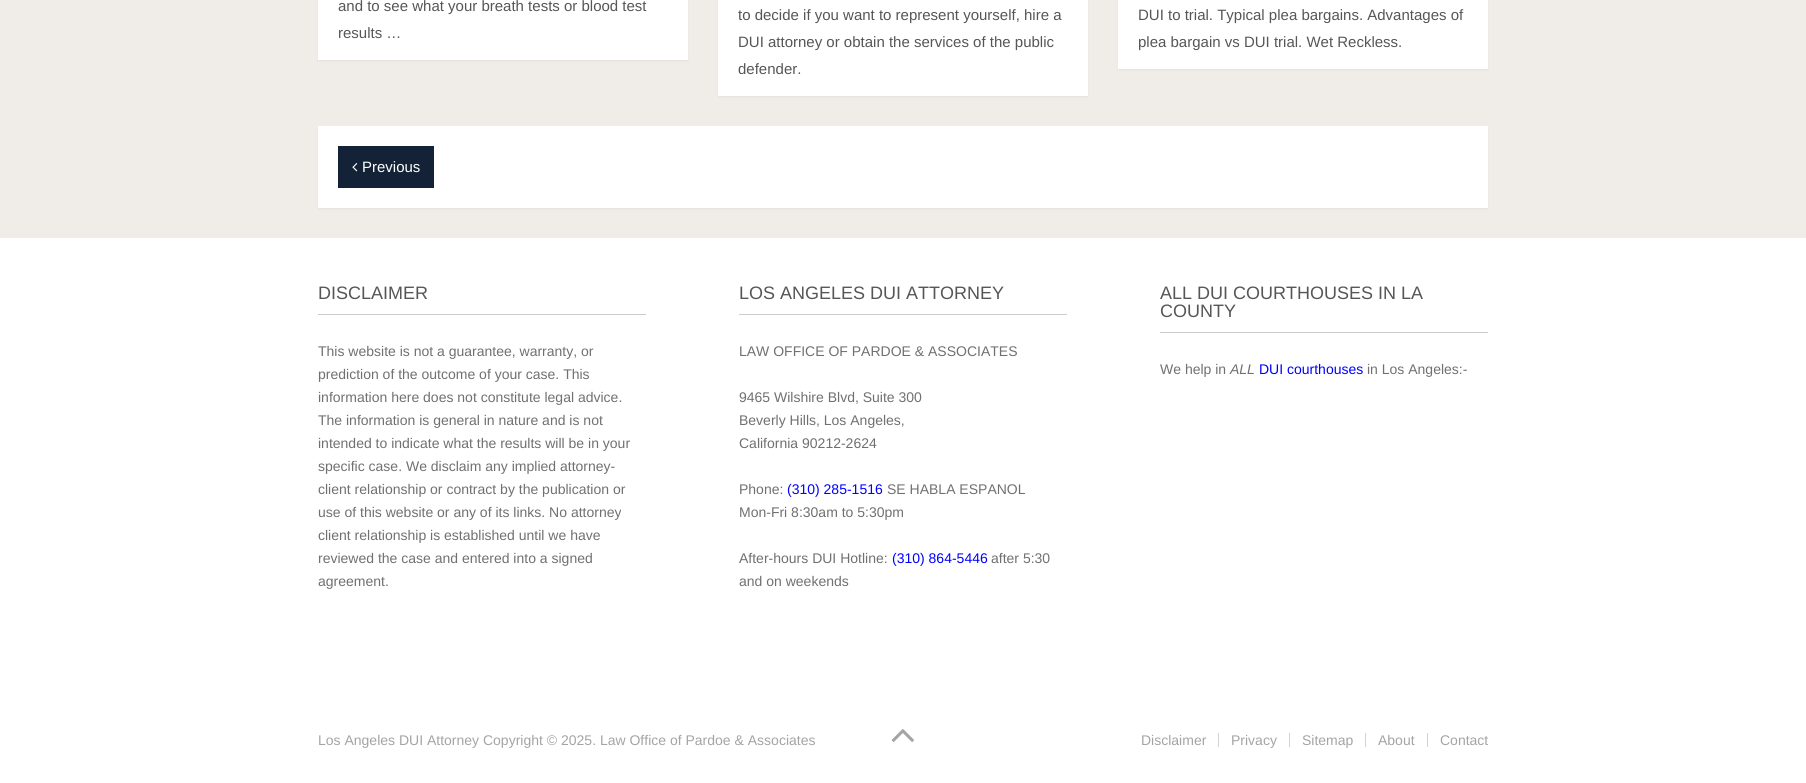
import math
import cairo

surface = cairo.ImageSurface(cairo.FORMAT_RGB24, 1806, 783)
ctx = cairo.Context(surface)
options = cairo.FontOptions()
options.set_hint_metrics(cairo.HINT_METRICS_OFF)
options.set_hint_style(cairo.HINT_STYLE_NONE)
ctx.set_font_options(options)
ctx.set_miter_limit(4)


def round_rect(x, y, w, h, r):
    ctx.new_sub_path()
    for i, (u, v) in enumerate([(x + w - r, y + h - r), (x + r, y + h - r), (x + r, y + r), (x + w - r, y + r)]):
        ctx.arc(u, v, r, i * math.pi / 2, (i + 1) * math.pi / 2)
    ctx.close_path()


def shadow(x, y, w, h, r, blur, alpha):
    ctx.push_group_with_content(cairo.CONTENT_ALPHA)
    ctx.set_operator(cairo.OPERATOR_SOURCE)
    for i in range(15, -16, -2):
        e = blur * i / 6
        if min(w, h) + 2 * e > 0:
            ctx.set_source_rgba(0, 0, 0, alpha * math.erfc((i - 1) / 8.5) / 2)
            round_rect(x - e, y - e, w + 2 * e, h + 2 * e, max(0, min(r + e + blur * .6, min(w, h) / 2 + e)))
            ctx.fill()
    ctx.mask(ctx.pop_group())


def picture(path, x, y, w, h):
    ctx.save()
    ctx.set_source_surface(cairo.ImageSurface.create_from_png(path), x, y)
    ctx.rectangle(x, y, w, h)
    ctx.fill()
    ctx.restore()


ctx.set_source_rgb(0.941, 0.929, 0.914)
ctx.paint()
ctx.set_source_rgb(0, 0, 0)
shadow(318, -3, 370, 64, 0, 1, 0.05)
ctx.set_source_rgb(1, 1, 1)
ctx.rectangle(318, 0, 370, 60)
ctx.fill()
ctx.select_font_face("Liberation Sans")
ctx.set_font_size(15)
ctx.set_source_rgb(0.337, 0.337, 0.337)
ctx.move_to(338, 11)
ctx.show_text("and to see what your breath tests or blood test")
ctx.move_to(338, 38)
ctx.show_text("results …")
ctx.set_source_rgb(0, 0, 0)
shadow(718, -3, 370, 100, 0, 1, 0.05)
ctx.set_source_rgb(1, 1, 1)
ctx.rectangle(718, 0, 370, 96)
ctx.fill()
ctx.set_source_rgb(0.337, 0.337, 0.337)
ctx.move_to(738, 20)
ctx.show_text("to decide if you want to represent yourself, hire a")
ctx.move_to(738, 47)
ctx.show_text("DUI attorney or obtain the services of the public")
ctx.move_to(738, 74)
ctx.show_text("defender.")
ctx.set_source_rgb(0, 0, 0)
shadow(1118, -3, 370, 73, 0, 1, 0.05)
ctx.set_source_rgb(1, 1, 1)
ctx.rectangle(1118, 0, 370, 69)
ctx.fill()
ctx.set_source_rgb(0.337, 0.337, 0.337)
ctx.move_to(1138, 20)
ctx.show_text("DUI to trial. Typical plea bargains. Advantages of")
ctx.move_to(1138, 47)
ctx.show_text("plea bargain vs DUI trial. Wet Reckless.")
ctx.set_source_rgb(0, 0, 0)
shadow(318, 127, 1170, 82, 0, 1, 0.05)
ctx.set_source_rgb(1, 1, 1)
ctx.rectangle(318, 126, 1170, 82)
ctx.fill()
ctx.set_source_rgb(0.082, 0.133, 0.22)
ctx.rectangle(338, 146, 96, 42)
ctx.fill()
picture("img1.png", 352, 163, 6, 9)
ctx.set_source_rgb(1, 1, 1)
ctx.move_to(362, 172)
ctx.show_text("Previous")
ctx.rectangle(0, 238, 1806, 545)
ctx.fill()
ctx.set_source_rgb(0.8, 0.8, 0.8)
ctx.rectangle(318, 314, 328, 1)
ctx.fill()
ctx.set_font_size(18)
ctx.set_source_rgb(0.337, 0.337, 0.337)
ctx.move_to(318, 299)
ctx.show_text("DISCLAIMER")
ctx.set_font_size(14)
ctx.set_source_rgb(0.439, 0.439, 0.439)
ctx.move_to(318, 356)
ctx.show_text("This website is not a guarantee, warranty, or")
ctx.move_to(318, 379)
ctx.show_text("prediction of the outcome of your case. This")
ctx.move_to(318, 402)
ctx.show_text("information here does not constitute legal advice.")
ctx.move_to(318, 425)
ctx.show_text("The information is general in nature and is not")
ctx.move_to(318, 448)
ctx.show_text("intended to indicate what the results will be in your")
ctx.move_to(318, 471)
ctx.show_text("specific case. We disclaim any implied attorney-")
ctx.move_to(318, 494)
ctx.show_text("client relationship or contract by the publication or")
ctx.move_to(318, 517)
ctx.show_text("use of this website or any of its links. No attorney")
ctx.move_to(318, 540)
ctx.show_text("client relationship is established until we have")
ctx.move_to(318, 563)
ctx.show_text("reviewed the case and entered into a signed")
ctx.move_to(318, 586)
ctx.show_text("agreement.")
ctx.set_source_rgb(0.8, 0.8, 0.8)
ctx.rectangle(739, 314, 328, 1)
ctx.fill()
ctx.set_font_size(18)
ctx.set_source_rgb(0.337, 0.337, 0.337)
ctx.move_to(739, 299)
ctx.show_text("LOS ANGELES DUI ATTORNEY")
ctx.set_font_size(14)
ctx.set_source_rgb(0.439, 0.439, 0.439)
ctx.move_to(739, 356)
ctx.show_text("LAW OFFICE OF PARDOE & ASSOCIATES")
ctx.move_to(739, 402)
ctx.show_text("9465 Wilshire Blvd, Suite 300")
ctx.move_to(739, 425)
ctx.show_text("Beverly Hills, Los Angeles,")
ctx.move_to(739, 448)
ctx.show_text("California 90212-2624")
ctx.move_to(739, 494)
ctx.show_text("Phone:")
ctx.set_source_rgb(0, 0, 1)
ctx.move_to(787, 494)
ctx.show_text("(310) 285-1516")
ctx.set_source_rgb(0.439, 0.439, 0.439)
ctx.move_to(887, 494)
ctx.show_text("SE HABLA ESPANOL")
ctx.move_to(739, 517)
ctx.show_text("Mon-Fri 8:30am to 5:30pm")
ctx.move_to(739, 563)
ctx.show_text("After-hours DUI Hotline:")
ctx.set_source_rgb(0, 0, 1)
ctx.move_to(892, 563)
ctx.show_text("(310) 864-5446")
ctx.set_source_rgb(0.439, 0.439, 0.439)
ctx.move_to(991, 563)
ctx.show_text("after 5:30")
ctx.move_to(739, 586)
ctx.show_text("and on weekends")
ctx.set_source_rgb(0.8, 0.8, 0.8)
ctx.rectangle(1160, 332, 328, 1)
ctx.fill()
ctx.set_font_size(18)
ctx.set_source_rgb(0.337, 0.337, 0.337)
ctx.move_to(1160, 299)
ctx.show_text("ALL DUI COURTHOUSES IN LA")
ctx.move_to(1160, 317)
ctx.show_text("COUNTY")
ctx.set_font_size(14)
ctx.set_source_rgb(0.439, 0.439, 0.439)
ctx.move_to(1160, 374)
ctx.show_text("We help in")
ctx.select_font_face("Liberation Sans", cairo.FONT_SLANT_ITALIC)
ctx.move_to(1230, 374)
ctx.show_text("ALL")
ctx.select_font_face("Liberation Sans")
ctx.set_source_rgb(0, 0, 1)
ctx.move_to(1259, 374)
ctx.show_text("DUI courthouses")
ctx.set_source_rgb(0.439, 0.439, 0.439)
ctx.move_to(1367, 374)
ctx.show_text("in Los Angeles:-")
ctx.set_source_rgb(0.643, 0.643, 0.643)
ctx.move_to(318, 745)
ctx.show_text("Los Angeles DUI Attorney Copyright © 2025. Law Office of Pardoe & Associates")
picture("img2.png", 891, 729, 23, 13)
ctx.set_source_rgb(0.824, 0.824, 0.824)
ctx.rectangle(1218, 733, 1, 14)
ctx.fill()
ctx.set_source_rgb(0.643, 0.643, 0.643)
ctx.move_to(1141, 745)
ctx.show_text("Disclaimer")
ctx.set_source_rgb(0.824, 0.824, 0.824)
ctx.rectangle(1289, 733, 1, 14)
ctx.fill()
ctx.set_source_rgb(0.643, 0.643, 0.643)
ctx.move_to(1231, 745)
ctx.show_text("Privacy")
ctx.set_source_rgb(0.824, 0.824, 0.824)
ctx.rectangle(1365, 733, 1, 14)
ctx.fill()
ctx.set_source_rgb(0.643, 0.643, 0.643)
ctx.move_to(1302, 745)
ctx.show_text("Sitemap")
ctx.set_source_rgb(0.824, 0.824, 0.824)
ctx.rectangle(1427, 733, 1, 14)
ctx.fill()
ctx.set_source_rgb(0.643, 0.643, 0.643)
ctx.move_to(1378, 745)
ctx.show_text("About")
ctx.move_to(1440, 745)
ctx.show_text("Contact")
surface.write_to_png("page.png")
